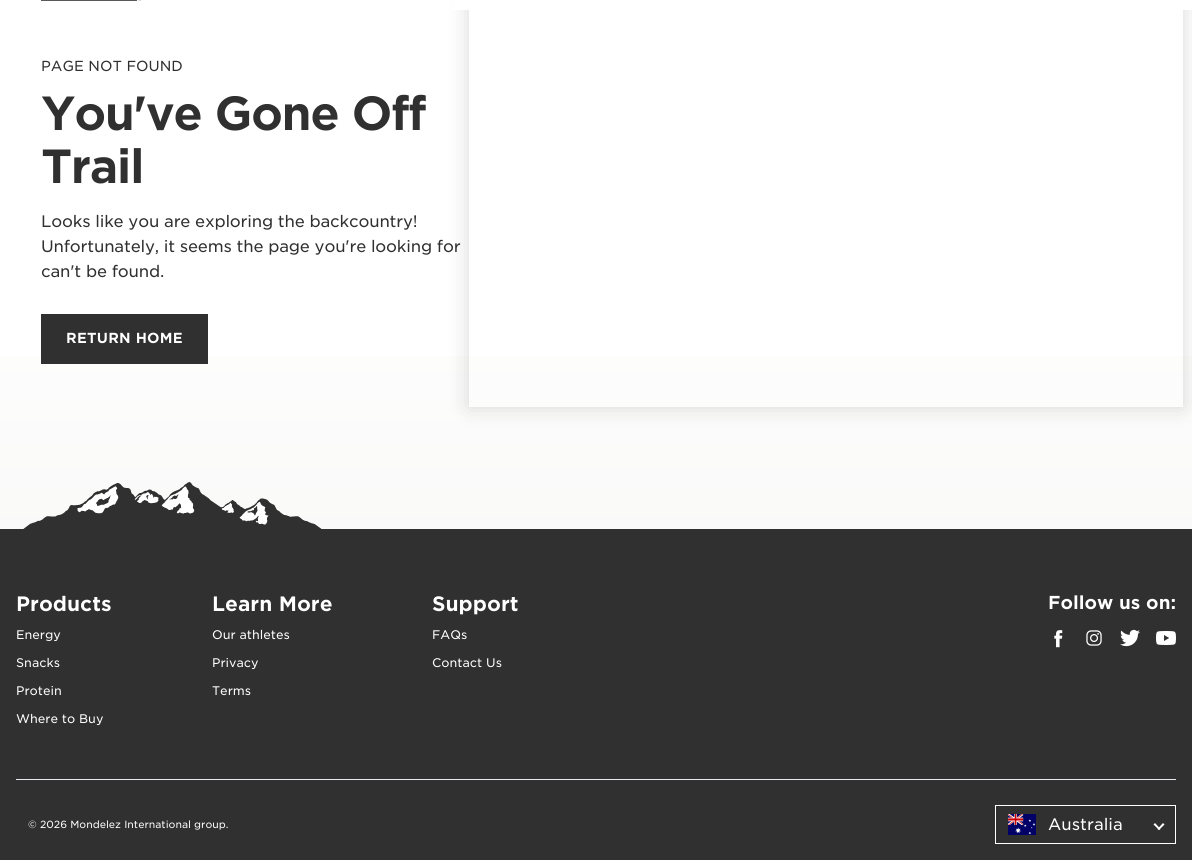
import math
import cairo

surface = cairo.ImageSurface(cairo.FORMAT_RGB24, 1192, 860)
ctx = cairo.Context(surface)
options = cairo.FontOptions()
options.set_hint_metrics(cairo.HINT_METRICS_OFF)
options.set_hint_style(cairo.HINT_STYLE_NONE)
ctx.set_font_options(options)
ctx.set_miter_limit(4)


def spaced_text(x, y, s, letter, word):
    ctx.move_to(x, y)
    for ch in s:
        ctx.show_text(ch)
        ctx.rel_move_to(letter + word * (ch == ' '), 0)


def round_rect(x, y, w, h, r):
    ctx.new_sub_path()
    for i, (u, v) in enumerate([(x + w - r, y + h - r), (x + r, y + h - r), (x + r, y + r), (x + w - r, y + r)]):
        ctx.arc(u, v, r, i * math.pi / 2, (i + 1) * math.pi / 2)
    ctx.close_path()


def shadow(x, y, w, h, r, blur, alpha):
    ctx.push_group_with_content(cairo.CONTENT_ALPHA)
    ctx.set_operator(cairo.OPERATOR_SOURCE)
    for i in range(15, -16, -2):
        e = blur * i / 6
        if min(w, h) + 2 * e > 0:
            ctx.set_source_rgba(0, 0, 0, alpha * math.erfc((i - 1) / 8.5) / 2)
            round_rect(x - e, y - e, w + 2 * e, h + 2 * e, max(0, min(r + e + blur * .6, min(w, h) / 2 + e)))
            ctx.fill()
    ctx.mask(ctx.pop_group())


def picture(path, x, y, w, h):
    ctx.save()
    ctx.set_source_surface(cairo.ImageSurface.create_from_png(path), x, y)
    ctx.rectangle(x, y, w, h)
    ctx.fill()
    ctx.restore()


ctx.set_source_rgb(1, 1, 1)
ctx.paint()
gradient = cairo.LinearGradient(596, -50, 596, 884)
gradient.add_color_stop_rgba(0.32, 1, 1, 1, 1)
gradient.add_color_stop_rgba(0.64, 0.976, 0.976, 0.973, 1)
ctx.set_source(gradient)
ctx.rectangle(0, 356, 1192, 173)
ctx.fill()
ctx.save()
ctx.set_fill_rule(cairo.FILL_RULE_EVEN_ODD)
ctx.new_path()
ctx.move_to(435, 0)
ctx.line_to(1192, 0)
ctx.line_to(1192, 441)
ctx.line_to(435, 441)
ctx.close_path()
ctx.move_to(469, -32)
ctx.line_to(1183, -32)
ctx.line_to(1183, 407)
ctx.line_to(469, 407)
ctx.close_path()
ctx.clip()
ctx.set_source_rgb(0, 0, 0)
shadow(469, -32, 714, 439, 0, 11, 0.15)
ctx.restore()
ctx.set_source_rgb(1, 1, 1)
ctx.rectangle(453, 0, 739, 10)
ctx.fill()
picture("img1.png", 41, 0, 100, 1)
ctx.select_font_face("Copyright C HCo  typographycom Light")
ctx.set_font_size(14)
ctx.set_source_rgb(0.188, 0.188, 0.188)
ctx.move_to(41, 71)
ctx.show_text("PAGE NOT FOUND")
ctx.select_font_face("Copyright C HCo  typographycom")
ctx.set_font_size(46)
spaced_text(41, 130, "You've Gone Off", -1.5, 0)
spaced_text(41, 183, "Trail", -1.5, 0)
ctx.select_font_face("Copyright C HCo  typographycom Light")
ctx.set_font_size(16)
spaced_text(41, 227, "Looks like you are exploring the backcountry!", -0.2, 0)
spaced_text(41, 252, "Unfortunately, it seems the page you're looking for", -0.2, 0)
spaced_text(41, 277, "can't be found.", -0.2, 0)
ctx.rectangle(41, 314, 167, 50)
ctx.fill()
ctx.select_font_face("Copyright C HCo  typographycom")
ctx.set_font_size(14)
ctx.set_source_rgb(1, 1, 1)
spaced_text(66, 343, "RETURN HOME", 0.25, 0)
ctx.set_source_rgb(0.188, 0.188, 0.188)
ctx.rectangle(0, 529, 1192, 331)
ctx.fill()
picture("img2.png", 23, 482, 299, 47)
ctx.set_font_size(20)
ctx.set_source_rgb(1, 1, 1)
ctx.move_to(16, 611)
ctx.show_text("Products")
ctx.select_font_face("Copyright C HCo  typographycom Light")
ctx.set_font_size(12)
ctx.move_to(16, 639)
ctx.show_text("Energy")
ctx.move_to(16, 667)
ctx.show_text("Snacks")
ctx.move_to(16, 695)
ctx.show_text("Protein")
ctx.move_to(16, 723)
ctx.show_text("Where to Buy")
ctx.select_font_face("Copyright C HCo  typographycom")
ctx.set_font_size(20)
ctx.move_to(212, 611)
ctx.show_text("Learn More")
ctx.select_font_face("Copyright C HCo  typographycom Light")
ctx.set_font_size(12)
ctx.move_to(212, 639)
ctx.show_text("Our athletes")
ctx.move_to(212, 667)
ctx.show_text("Privacy")
ctx.move_to(212, 695)
ctx.show_text("Terms")
ctx.select_font_face("Copyright C HCo  typographycom")
ctx.set_font_size(20)
ctx.move_to(432, 611)
ctx.show_text("Support")
ctx.select_font_face("Copyright C HCo  typographycom Light")
ctx.set_font_size(12)
ctx.move_to(432, 639)
ctx.show_text("FAQs")
ctx.move_to(432, 667)
ctx.show_text("Contact Us")
ctx.select_font_face("Copyright C HCo  typographycom")
ctx.set_font_size(18)
ctx.move_to(1048, 609)
ctx.show_text("Follow us on:")
picture("img3.png", 1054, 630, 9, 18)
picture("img4.png", 1086, 630, 16, 16)
picture("img5.png", 1120, 629, 20, 18)
picture("img6.png", 1156, 631, 20, 14)
ctx.set_source_rgb(0.898, 0.906, 0.922)
ctx.rectangle(16, 779, 1160, 1)
ctx.fill()
ctx.select_font_face("Copyright C HCo  typographycom Light")
ctx.set_font_size(10)
ctx.set_source_rgb(1, 1, 1)
ctx.move_to(28, 828)
ctx.show_text("© 2026 Mondelez International group.")
ctx.rectangle(995.5, 805.5, 180, 38)
ctx.set_line_width(1)
ctx.stroke()
picture("img7.png", 1008, 814, 28, 21)
ctx.set_font_size(16)
ctx.move_to(1048, 830)
ctx.show_text("Australia")
ctx.new_path()
ctx.move_to(1164.5, 824.5)
ctx.line_to(1159, 830)
ctx.line_to(1157.5, 829)
ctx.line_to(1163, 823)
ctx.close_path()
ctx.fill()
ctx.new_path()
ctx.move_to(1160.5, 829)
ctx.line_to(1159, 830)
ctx.line_to(1153.5, 824.5)
ctx.line_to(1155, 823)
ctx.close_path()
ctx.fill()
surface.write_to_png("page.png")
